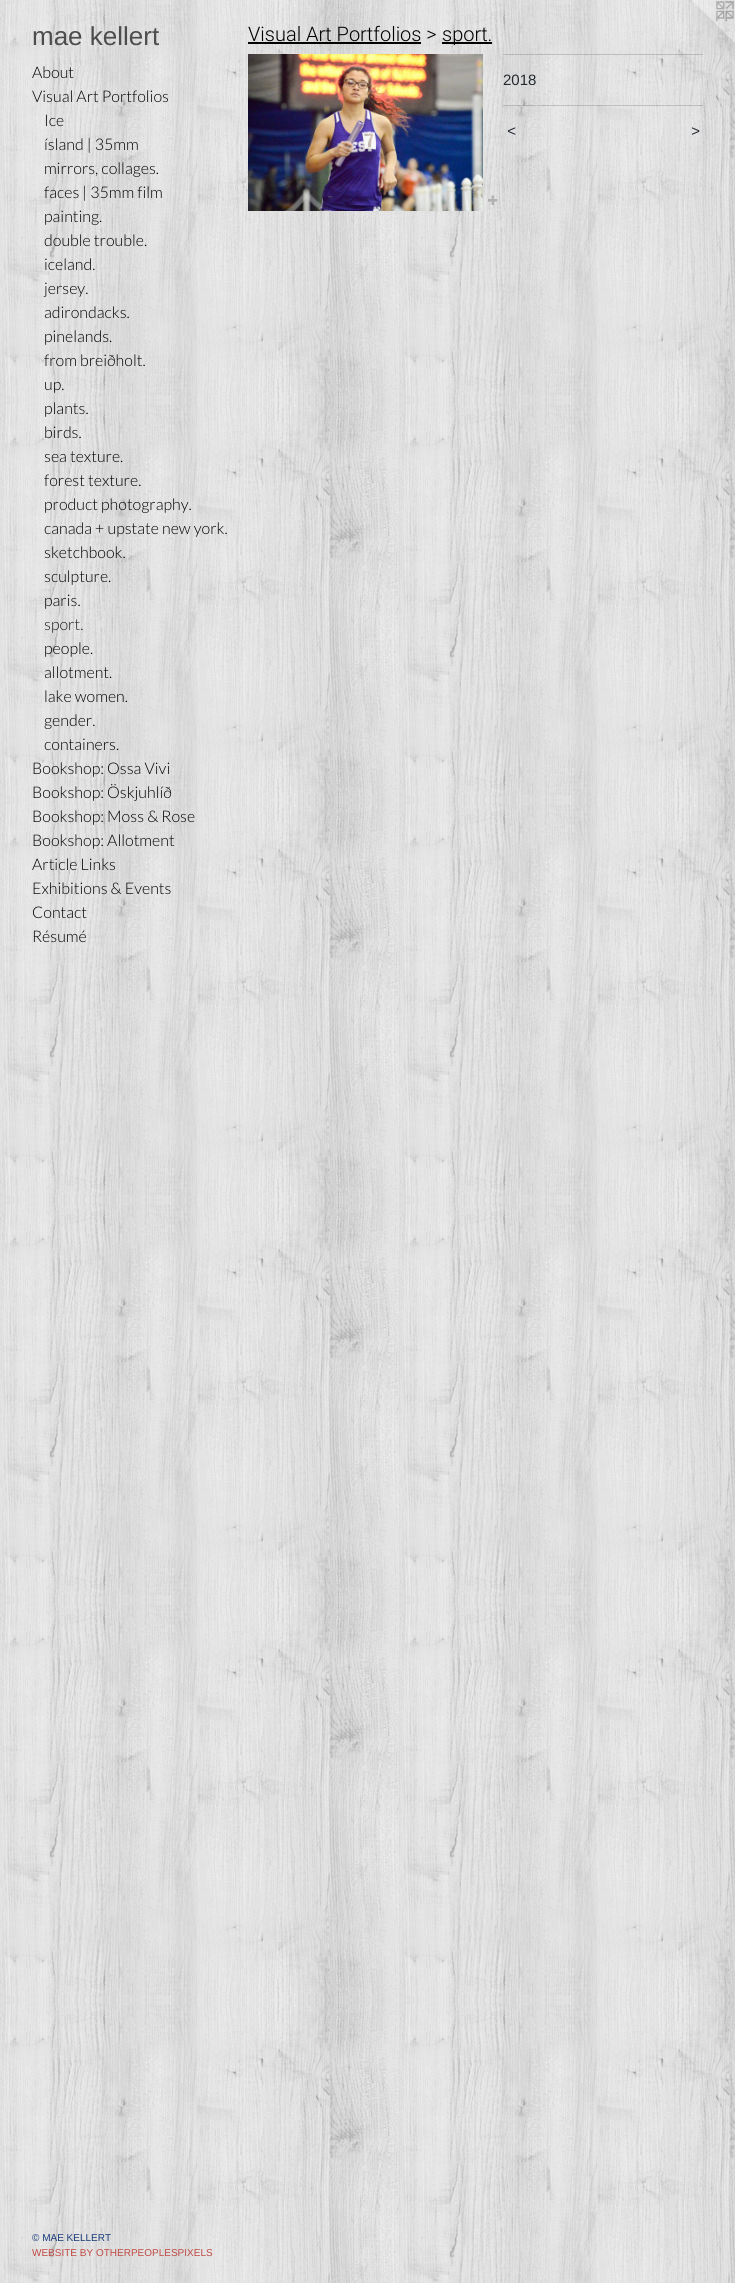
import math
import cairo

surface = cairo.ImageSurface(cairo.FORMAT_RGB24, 735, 2283)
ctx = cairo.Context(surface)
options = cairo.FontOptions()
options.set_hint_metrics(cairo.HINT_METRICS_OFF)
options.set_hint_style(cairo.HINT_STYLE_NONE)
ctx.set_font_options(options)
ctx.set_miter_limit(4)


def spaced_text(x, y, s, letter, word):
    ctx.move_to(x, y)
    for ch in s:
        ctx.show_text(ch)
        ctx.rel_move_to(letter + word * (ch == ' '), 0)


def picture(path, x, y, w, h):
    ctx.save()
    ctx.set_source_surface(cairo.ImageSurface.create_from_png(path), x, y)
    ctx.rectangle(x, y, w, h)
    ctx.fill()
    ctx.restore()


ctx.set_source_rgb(1, 1, 1)
ctx.paint()
picture("img1.png", 0, 0, 735, 2283)
ctx.select_font_face("Arimo")
ctx.set_font_size(26)
ctx.set_source_rgb(0.302, 0.302, 0.302)
ctx.move_to(32, 45)
ctx.show_text("mae kellert")
ctx.select_font_face("Lato Light")
ctx.set_font_size(16)
ctx.set_source_rgb(0, 0, 0)
ctx.move_to(32, 78)
ctx.show_text("About")
ctx.move_to(32, 102)
ctx.show_text("Visual Art Portfolios")
ctx.move_to(44, 126)
ctx.show_text("Ice")
ctx.move_to(44, 150)
ctx.show_text("ísland | 35mm")
ctx.move_to(44, 174)
ctx.show_text("mirrors, collages.")
ctx.move_to(44, 198)
ctx.show_text("faces | 35mm film")
ctx.move_to(44, 222)
ctx.show_text("painting.")
ctx.move_to(44, 246)
ctx.show_text("double trouble.")
ctx.move_to(44, 270)
ctx.show_text("iceland.")
ctx.move_to(44, 294)
ctx.show_text("jersey.")
ctx.move_to(44, 318)
ctx.show_text("adirondacks.")
ctx.move_to(44, 342)
ctx.show_text("pinelands.")
ctx.move_to(44, 366)
ctx.show_text("from breiðholt.")
ctx.move_to(44, 390)
ctx.show_text("up.")
ctx.move_to(44, 414)
ctx.show_text("plants.")
ctx.move_to(44, 438)
ctx.show_text("birds.")
ctx.move_to(44, 462)
ctx.show_text("sea texture.")
ctx.move_to(44, 486)
ctx.show_text("forest texture.")
ctx.move_to(44, 510)
ctx.show_text("product photography.")
ctx.move_to(44, 534)
ctx.show_text("canada + upstate new york.")
ctx.move_to(44, 558)
ctx.show_text("sketchbook.")
ctx.move_to(44, 582)
ctx.show_text("sculpture.")
ctx.move_to(44, 606)
ctx.show_text("paris.")
ctx.set_source_rgb(0.102, 0.102, 0.102)
ctx.move_to(44, 630)
ctx.show_text("sport.")
ctx.set_source_rgb(0, 0, 0)
ctx.move_to(44, 654)
ctx.show_text("people.")
ctx.move_to(44, 678)
ctx.show_text("allotment.")
ctx.move_to(44, 702)
ctx.show_text("lake women.")
ctx.move_to(44, 726)
ctx.show_text("gender.")
ctx.move_to(44, 750)
ctx.show_text("containers.")
ctx.move_to(32, 774)
ctx.show_text("Bookshop: Ossa Vivi")
ctx.move_to(32, 798)
ctx.show_text("Bookshop: Öskjuhlíð")
ctx.move_to(32, 822)
ctx.show_text("Bookshop: Moss & Rose")
ctx.move_to(32, 846)
ctx.show_text("Bookshop: Allotment")
ctx.move_to(32, 870)
ctx.show_text("Article Links")
ctx.move_to(32, 894)
ctx.show_text("Exhibitions & Events")
ctx.move_to(32, 918)
ctx.show_text("Contact")
ctx.move_to(32, 942)
ctx.show_text("Résumé")
ctx.select_font_face("Liberation Sans")
ctx.set_font_size(10)
ctx.set_source_rgb(0.09, 0.227, 0.471)
ctx.move_to(32, 2241)
ctx.show_text("© MAE KELLERT")
ctx.set_source_rgb(0.757, 0.286, 0.267)
ctx.move_to(32, 2256)
ctx.show_text("WEBSITE BY OTHERPEOPLESPIXELS")
ctx.select_font_face("Roboto Light")
ctx.set_font_size(20)
ctx.set_source_rgb(0, 0, 0)
ctx.move_to(248, 41)
ctx.show_text("Visual Art Portfolios >")
ctx.rectangle(248, 42, 173, 2)
ctx.fill()
ctx.rectangle(442, 42, 50, 2)
ctx.fill()
ctx.move_to(442, 41)
ctx.show_text("sport.")
picture("img2.png", 248, 54, 235, 157)
picture("img3.png", 488, 195, 10, 10)
picture("img4.png", 679, 0, 56, 56)
ctx.set_source_rgba(0.137, 0.161, 0.184, 0.2)
ctx.rectangle(503, 54, 200, 1)
ctx.fill()
ctx.select_font_face("Liberation Sans")
ctx.set_font_size(15)
ctx.set_source_rgb(0.137, 0.161, 0.184)
ctx.move_to(503, 85)
ctx.show_text("2018")
ctx.set_source_rgba(0.137, 0.161, 0.184, 0.2)
ctx.rectangle(503, 105, 200, 1)
ctx.fill()
ctx.select_font_face("Liberation Sans", cairo.FONT_SLANT_ITALIC)
ctx.set_source_rgb(0.137, 0.161, 0.184)
spaced_text(507, 136, "<", 1, 0)
spaced_text(691, 136, ">", 1, 0)
surface.write_to_png("page.png")
